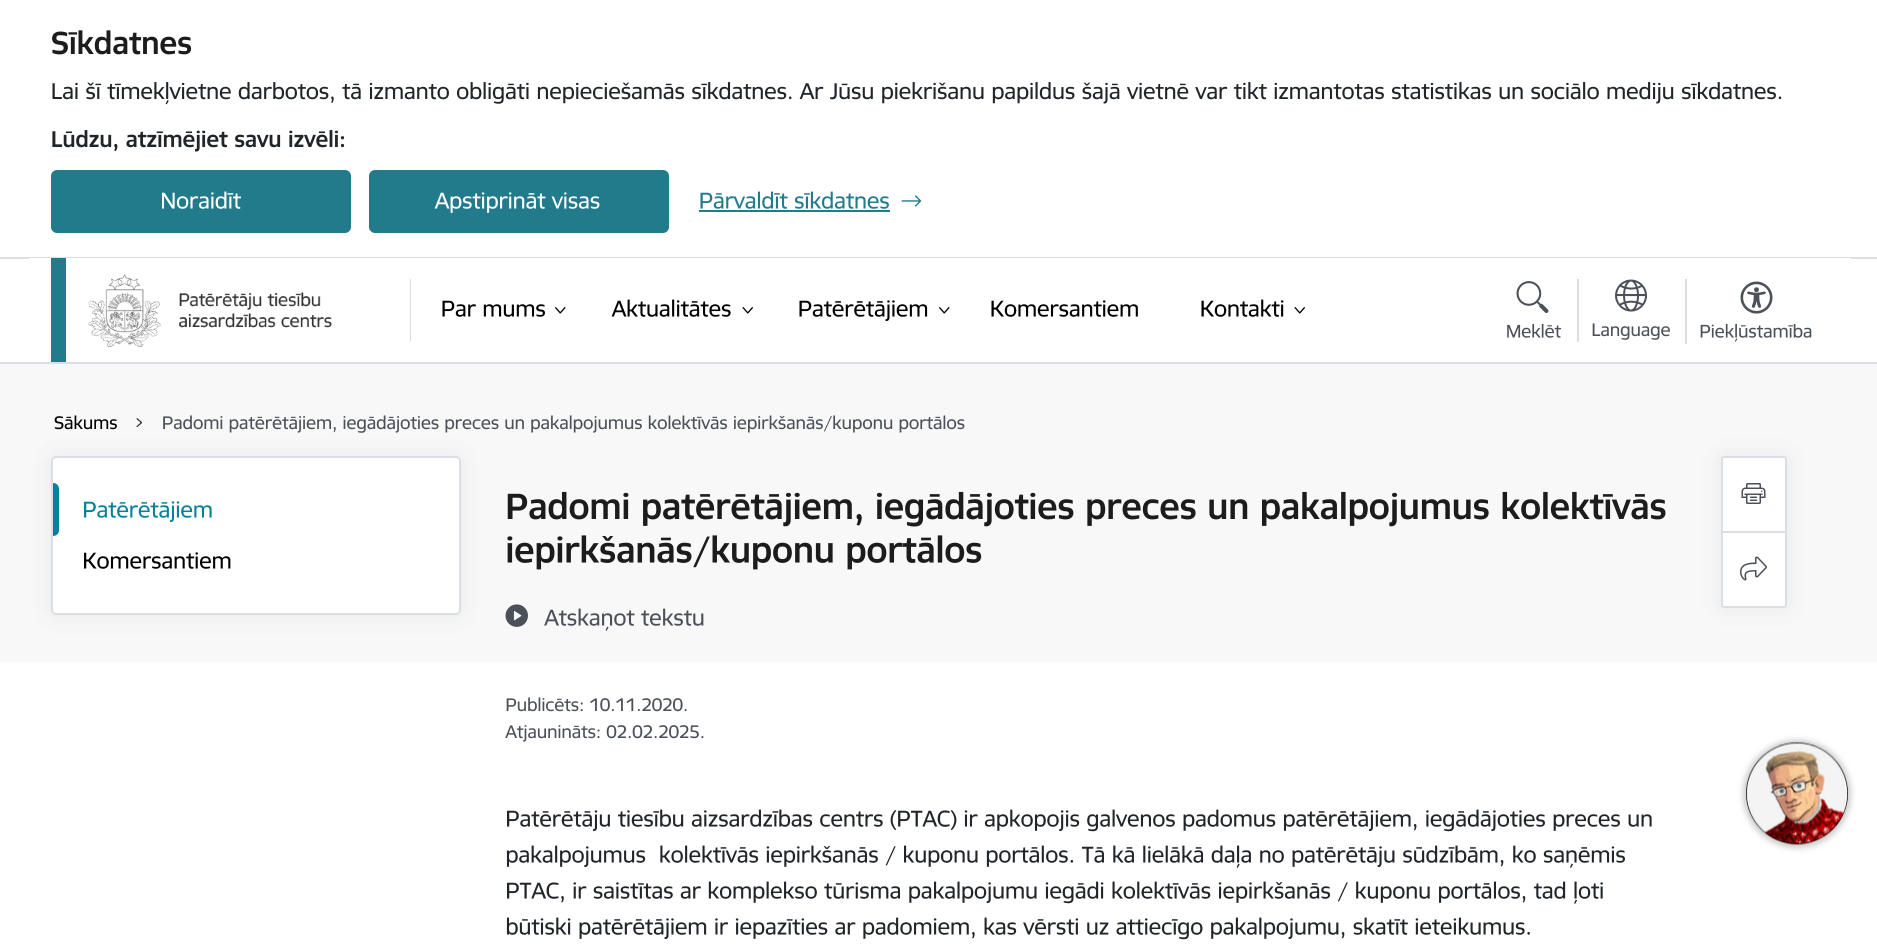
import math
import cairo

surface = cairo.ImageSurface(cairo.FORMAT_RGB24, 1877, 946)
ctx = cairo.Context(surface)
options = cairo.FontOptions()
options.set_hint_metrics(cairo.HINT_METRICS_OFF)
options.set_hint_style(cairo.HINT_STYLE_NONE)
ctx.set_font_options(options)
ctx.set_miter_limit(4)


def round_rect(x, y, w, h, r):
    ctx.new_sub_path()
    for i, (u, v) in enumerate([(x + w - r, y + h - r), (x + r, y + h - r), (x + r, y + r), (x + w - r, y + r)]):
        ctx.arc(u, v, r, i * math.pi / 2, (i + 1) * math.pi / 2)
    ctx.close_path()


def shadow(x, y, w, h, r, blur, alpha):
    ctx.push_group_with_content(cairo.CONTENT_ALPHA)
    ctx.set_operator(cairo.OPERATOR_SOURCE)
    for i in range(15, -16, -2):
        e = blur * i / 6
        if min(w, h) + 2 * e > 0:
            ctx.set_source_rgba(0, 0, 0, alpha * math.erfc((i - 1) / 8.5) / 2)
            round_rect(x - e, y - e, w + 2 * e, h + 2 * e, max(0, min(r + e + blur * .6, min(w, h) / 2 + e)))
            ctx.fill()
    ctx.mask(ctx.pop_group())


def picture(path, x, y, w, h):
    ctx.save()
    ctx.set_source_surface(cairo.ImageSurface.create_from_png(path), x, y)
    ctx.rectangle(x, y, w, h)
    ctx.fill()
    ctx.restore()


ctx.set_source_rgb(1, 1, 1)
ctx.paint()
ctx.set_source_rgb(0.859, 0.871, 0.894)
ctx.rectangle(0, 257, 1877, 2)
ctx.fill()
picture("img1.png", 52, 30, 140, 25)
picture("img2.png", 52, 82, 1730, 23)
picture("img3.png", 52, 130, 293, 22)
ctx.set_source_rgb(0.133, 0.482, 0.545)
round_rect(52, 171, 298, 61, 5)
ctx.fill_preserve()
ctx.stroke()
picture("img4.png", 162, 191, 79, 18)
round_rect(370, 171, 298, 61, 5)
ctx.fill_preserve()
ctx.stroke()
picture("img5.png", 434, 192, 166, 21)
picture("img6.png", 700, 191, 189, 18)
picture("img7.png", 901, 195, 21, 12)
ctx.rectangle(699, 210, 191, 2)
ctx.fill()
ctx.set_source_rgb(0.859, 0.871, 0.894)
ctx.rectangle(0, 362, 1877, 2)
ctx.fill()
ctx.set_source_rgb(1, 1, 1)
ctx.rectangle(29, 258, 1822, 1)
ctx.fill()
ctx.set_source_rgb(0.133, 0.482, 0.545)
ctx.rectangle(51, 258, 15, 104)
ctx.fill()
picture("img8.png", 88, 274, 244, 73)
ctx.set_source_rgb(0.859, 0.871, 0.894)
ctx.rectangle(410, 279, 1, 62)
ctx.fill()
picture("img9.png", 442, 300, 103, 17)
picture("img10.png", 555, 307, 11, 7)
picture("img11.png", 611, 299, 120, 18)
picture("img12.png", 742, 307, 11, 7)
picture("img13.png", 799, 300, 129, 22)
picture("img10.png", 939, 307, 11, 7)
picture("img14.png", 991, 300, 147, 17)
picture("img15.png", 1201, 299, 83, 18)
picture("img12.png", 1294, 307, 11, 7)
picture("img16.png", 1516, 281, 33, 32)
picture("img17.png", 1507, 323, 55, 15)
ctx.rectangle(1577, 279, 2, 63)
ctx.fill()
picture("img18.png", 1615, 279, 32, 33)
picture("img19.png", 1592, 323, 78, 17)
ctx.rectangle(1685, 279, 2, 65)
ctx.fill()
picture("img20.png", 1740, 281, 33, 33)
picture("img21.png", 1700, 323, 112, 19)
ctx.set_source_rgb(0.969, 0.969, 0.969)
ctx.rectangle(0, 364, 1877, 298)
ctx.fill()
picture("img22.png", 54, 415, 63, 15)
picture("img23.png", 136, 418, 7, 10)
picture("img24.png", 163, 415, 802, 18)
picture("img25.png", 507, 491, 1159, 36)
picture("img26.png", 507, 535, 475, 35)
picture("img27.png", 505, 604, 23, 23)
picture("img28.png", 544, 608, 160, 23)
ctx.set_source_rgb(0.847, 0.855, 0.867)
shadow(51, 456, 410, 159, 5, 11, 0.5)
ctx.set_source_rgb(1, 1, 1)
round_rect(52, 457, 408, 157, 4)
ctx.fill_preserve()
ctx.set_source_rgb(0.859, 0.871, 0.894)
ctx.stroke()
ctx.set_source_rgb(0.02, 0.506, 0.612)
ctx.new_path()
ctx.move_to(53, 483)
ctx.curve_to(56.5, 483, 59, 485.5, 59, 489)
ctx.line_to(59, 530)
ctx.curve_to(59, 533.5, 56.5, 536, 53, 536)
ctx.close_path()
ctx.fill()
picture("img29.png", 84, 501, 128, 22)
picture("img30.png", 84, 552, 147, 17)
ctx.set_source_rgb(0.847, 0.855, 0.867)
shadow(1721, 456, 66, 152, 3, 11, 0.5)
ctx.set_source_rgb(1, 1, 1)
round_rect(1722, 457, 64, 150, 2)
ctx.fill_preserve()
ctx.set_source_rgb(0.859, 0.871, 0.894)
ctx.stroke()
ctx.rectangle(1722, 531, 63, 2)
ctx.fill()
picture("img31.png", 1741, 483, 25, 21)
picture("img32.png", 1740, 556, 27, 25)
picture("img33.png", 506, 697, 181, 15)
picture("img34.png", 505, 725, 199, 17)
picture("img35.png", 507, 809, 1145, 23)
picture("img36.png", 506, 845, 1119, 23)
picture("img37.png", 507, 881, 1096, 23)
picture("img38.png", 506, 917, 1024, 23)
ctx.set_source_rgb(0, 0, 0)
shadow(1743, 740, 108, 108, 54, 3, 0.2)
ctx.set_source_rgb(1, 1, 1)
ctx.arc(1797, 794, 51, 0, 2 * math.pi)
ctx.fill()
picture("img39.png", 1746, 742, 102, 103)
surface.write_to_png("page.png")
